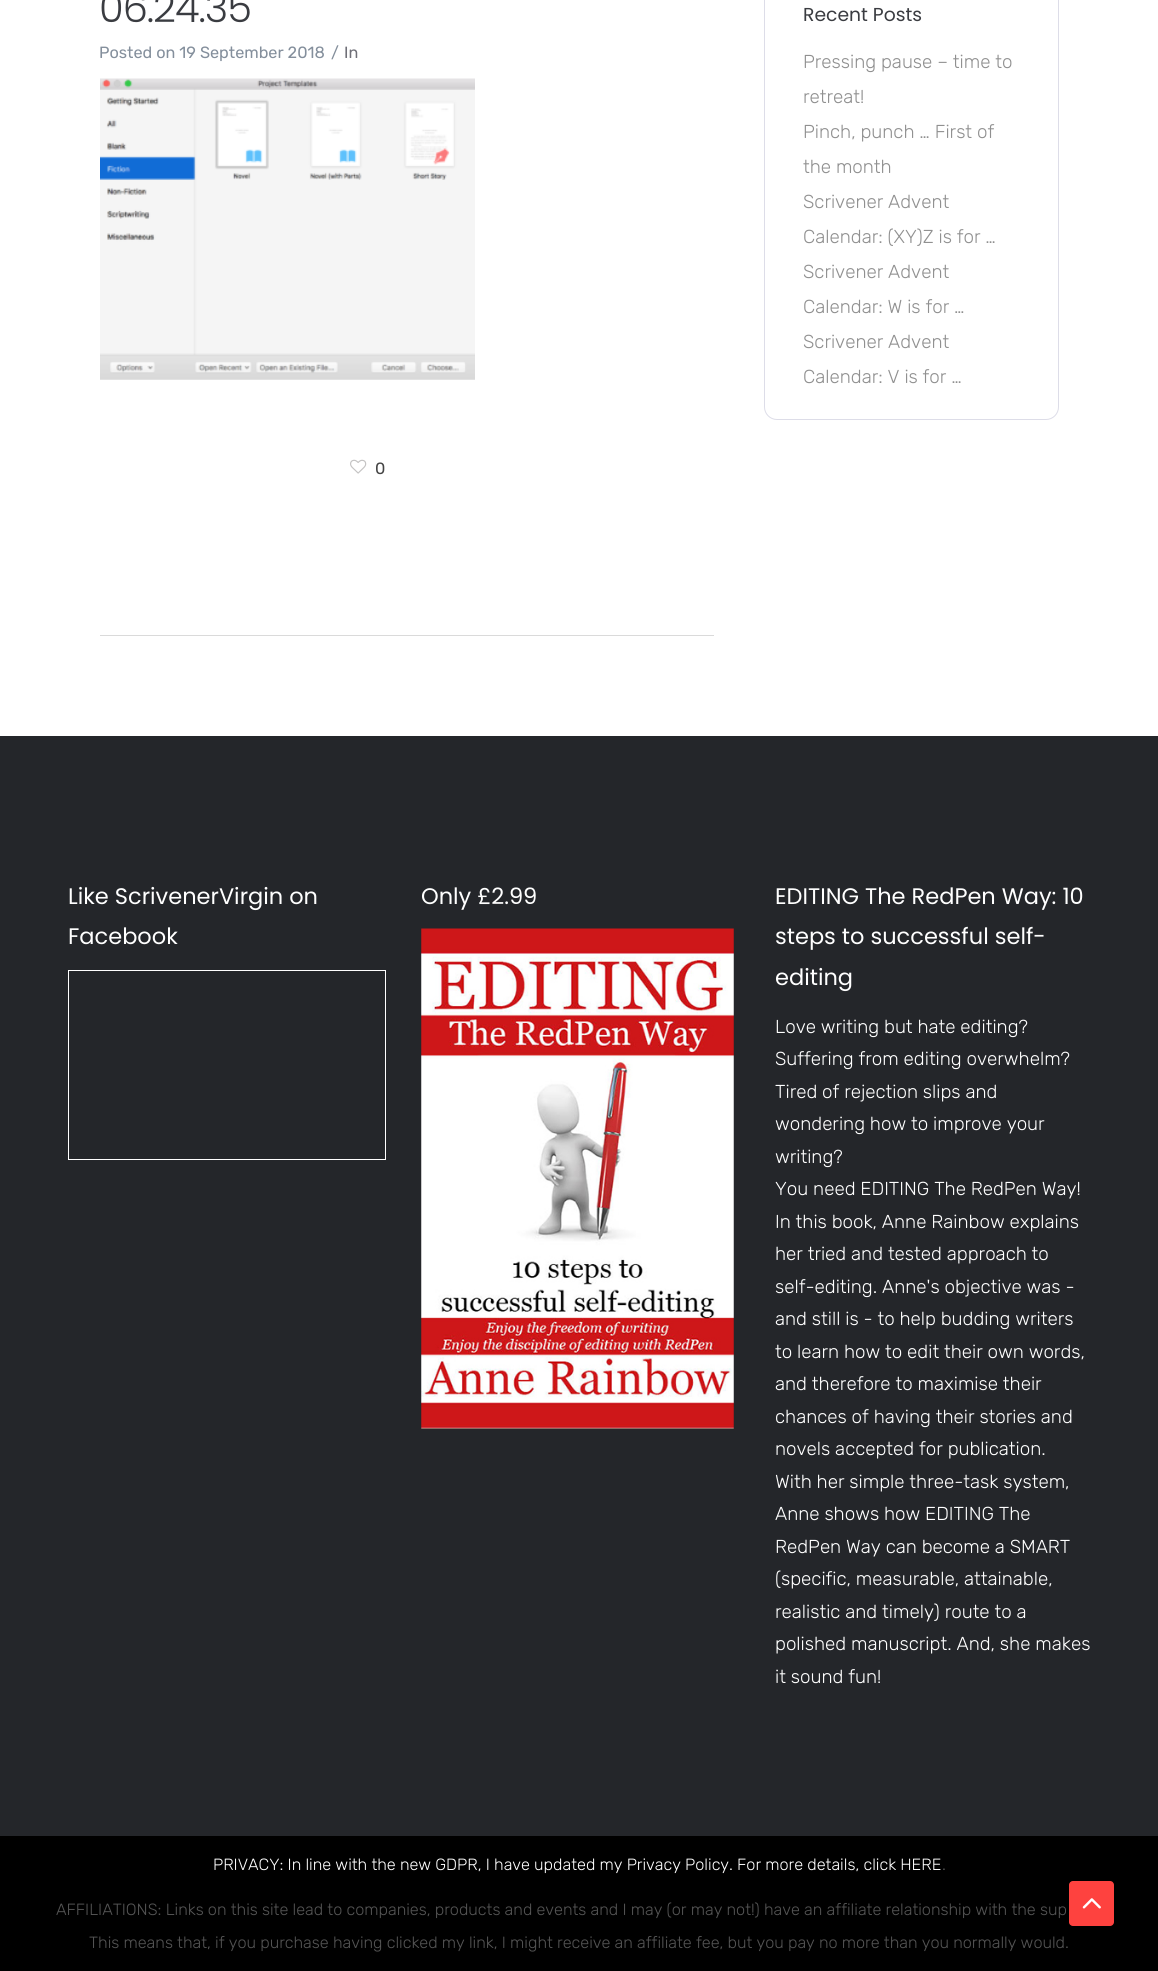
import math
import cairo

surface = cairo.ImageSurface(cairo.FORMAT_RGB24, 1158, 1971)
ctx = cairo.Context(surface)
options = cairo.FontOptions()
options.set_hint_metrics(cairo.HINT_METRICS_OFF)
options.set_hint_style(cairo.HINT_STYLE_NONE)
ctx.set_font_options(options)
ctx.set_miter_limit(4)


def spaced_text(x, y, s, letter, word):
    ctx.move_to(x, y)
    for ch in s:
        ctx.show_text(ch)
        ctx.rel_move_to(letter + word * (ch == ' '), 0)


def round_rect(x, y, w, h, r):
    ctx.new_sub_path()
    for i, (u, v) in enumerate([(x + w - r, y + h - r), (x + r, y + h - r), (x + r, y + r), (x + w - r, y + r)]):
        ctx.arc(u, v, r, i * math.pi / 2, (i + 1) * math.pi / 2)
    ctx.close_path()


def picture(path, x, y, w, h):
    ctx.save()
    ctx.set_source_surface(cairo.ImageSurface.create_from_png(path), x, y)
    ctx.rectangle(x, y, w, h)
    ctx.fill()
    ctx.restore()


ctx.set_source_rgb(1, 1, 1)
ctx.paint()
ctx.select_font_face("Poppins Light")
ctx.set_font_size(40)
ctx.set_source_rgb(0.227, 0.235, 0.255)
spaced_text(99, 22, "06.24.35", -1, 0)
ctx.select_font_face("Rubik")
ctx.set_font_size(16.25)
ctx.set_source_rgb(0.518, 0.561, 0.612)
ctx.move_to(99, 58)
ctx.show_text("Posted on 19 September 2018")
ctx.move_to(331, 58)
ctx.show_text("/")
ctx.set_source_rgb(0.435, 0.435, 0.467)
ctx.move_to(344, 58)
ctx.show_text("In")
picture("img1.png", 100, 78, 375, 302)
picture("img2.png", 350, 459, 17, 15)
ctx.set_source_rgb(0.267, 0.267, 0.267)
ctx.move_to(375, 474)
ctx.show_text("0")
ctx.set_source_rgb(0.855, 0.855, 0.855)
ctx.rectangle(100, 635, 614, 1)
ctx.fill()
round_rect(764.5, -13.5, 294, 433, 12.5)
ctx.set_source_rgb(0.867, 0.867, 0.91)
ctx.set_line_width(1)
ctx.stroke()
ctx.select_font_face("Poppins")
ctx.set_font_size(18.75)
ctx.set_source_rgb(0.227, 0.235, 0.255)
ctx.move_to(803, 21)
ctx.show_text("Recent Posts")
ctx.select_font_face("Rubik Light")
ctx.set_source_rgb(0.565, 0.565, 0.565)
ctx.move_to(803, 68)
ctx.show_text("Pressing pause – time to")
ctx.move_to(803, 103)
ctx.show_text("retreat!")
ctx.move_to(803, 138)
ctx.show_text("Pinch, punch … First of")
ctx.move_to(803, 173)
ctx.show_text("the month")
ctx.move_to(803, 208)
ctx.show_text("Scrivener Advent")
ctx.move_to(803, 243)
ctx.show_text("Calendar: (XY)Z is for …")
ctx.move_to(803, 278)
ctx.show_text("Scrivener Advent")
ctx.move_to(803, 313)
ctx.show_text("Calendar: W is for …")
ctx.move_to(803, 348)
ctx.show_text("Scrivener Advent")
ctx.move_to(803, 383)
ctx.show_text("Calendar: V is for …")
ctx.set_source_rgb(0.141, 0.149, 0.165)
ctx.rectangle(0, 736, 1158, 1100)
ctx.fill()
ctx.select_font_face("Poppins")
ctx.set_font_size(22.5)
ctx.set_source_rgb(1, 1, 1)
ctx.move_to(68, 904)
ctx.show_text("Like ScrivenerVirgin on")
ctx.move_to(68, 944)
ctx.show_text("Facebook")
ctx.rectangle(68.5, 970.5, 317, 189)
ctx.stroke()
ctx.move_to(421, 904)
ctx.show_text("Only £2.99")
picture("img3.png", 421, 928, 313, 501)
ctx.move_to(775, 904)
ctx.show_text("EDITING The RedPen Way: 10")
ctx.move_to(775, 944)
ctx.show_text("steps to successful self-")
ctx.move_to(775, 985)
ctx.show_text("editing")
ctx.select_font_face("Rubik Light")
ctx.set_font_size(18.75)
ctx.move_to(775, 1033)
ctx.show_text("Love writing but hate editing?")
ctx.move_to(775, 1065)
ctx.show_text("Suffering from editing overwhelm?")
ctx.move_to(775, 1098)
ctx.show_text("Tired of rejection slips and")
ctx.move_to(775, 1130)
ctx.show_text("wondering how to improve your")
ctx.move_to(775, 1163)
ctx.show_text("writing?")
ctx.move_to(775, 1195)
ctx.show_text("You need EDITING The RedPen Way!")
ctx.move_to(775, 1228)
ctx.show_text("In this book, Anne Rainbow explains")
ctx.move_to(775, 1260)
ctx.show_text("her tried and tested approach to")
ctx.move_to(775, 1293)
ctx.show_text("self-editing. Anne's objective was -")
ctx.move_to(775, 1325)
ctx.show_text("and still is - to help budding writers")
ctx.move_to(775, 1358)
ctx.show_text("to learn how to edit their own words,")
ctx.move_to(775, 1390)
ctx.show_text("and therefore to maximise their")
ctx.move_to(775, 1423)
ctx.show_text("chances of having their stories and")
ctx.move_to(775, 1455)
ctx.show_text("novels accepted for publication.")
ctx.move_to(775, 1488)
ctx.show_text("With her simple three-task system,")
ctx.move_to(775, 1520)
ctx.show_text("Anne shows how EDITING The")
ctx.move_to(775, 1553)
ctx.show_text("RedPen Way can become a SMART")
ctx.move_to(775, 1585)
ctx.show_text("(specific, measurable, attainable,")
ctx.move_to(775, 1618)
ctx.show_text("realistic and timely) route to a")
ctx.move_to(775, 1650)
ctx.show_text("polished manuscript. And, she makes")
ctx.move_to(775, 1683)
ctx.show_text("it sound fun!")
ctx.set_source_rgb(0, 0, 0)
ctx.rectangle(0, 1836, 1158, 135)
ctx.fill()
ctx.set_font_size(16.25)
ctx.set_source_rgb(1, 1, 1)
ctx.move_to(213, 1870)
ctx.show_text("PRIVACY: In line with the new GDPR, I have updated my Privacy Policy. For more details, click HERE")
ctx.set_source_rgb(0.329, 0.329, 0.329)
ctx.move_to(942, 1870)
ctx.show_text(".")
ctx.move_to(56, 1915)
ctx.show_text("AFFILIATIONS: Links on this site lead to companies, products and events and I may (or may not!) have an affiliate relationship with the sup")
ctx.move_to(89, 1948)
ctx.show_text("This means that, if you purchase having clicked my link, I might receive an affiliate fee, but you pay no more than you normally would.")
ctx.set_source_rgb(0.996, 0.259, 0.247)
round_rect(1069, 1881, 45, 45, 4)
ctx.fill()
picture("img4.png", 1082, 1898, 19, 11)
surface.write_to_png("page.png")
